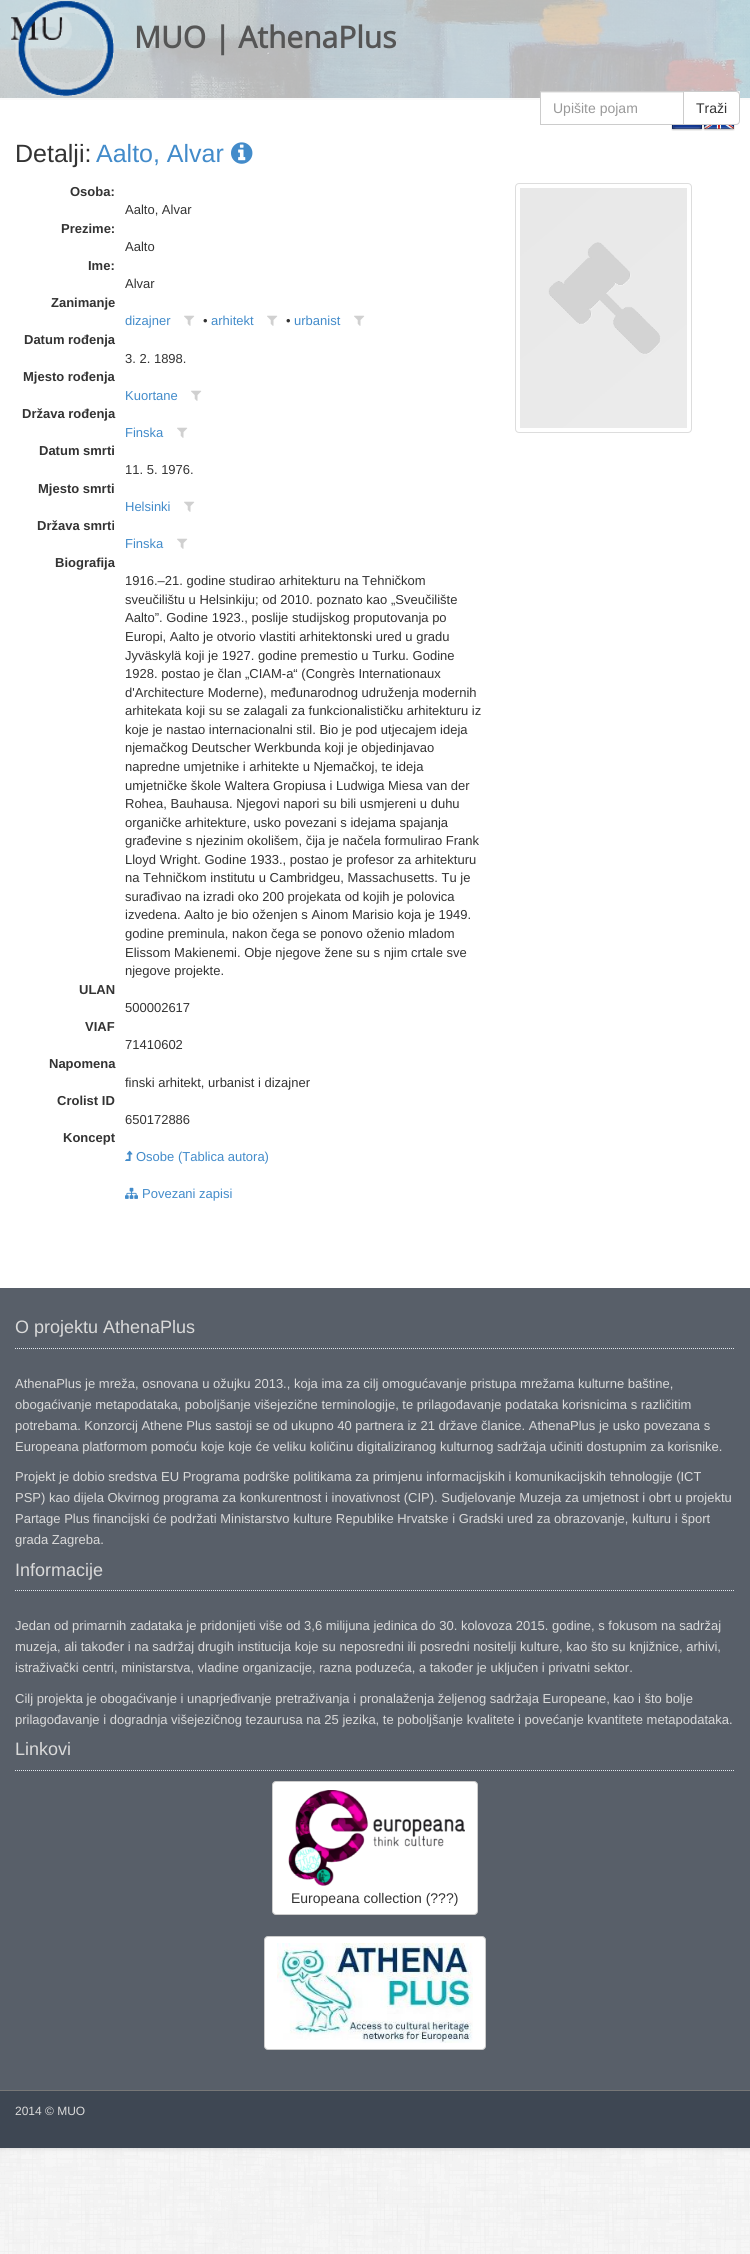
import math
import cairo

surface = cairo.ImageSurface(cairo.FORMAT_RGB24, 750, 2254)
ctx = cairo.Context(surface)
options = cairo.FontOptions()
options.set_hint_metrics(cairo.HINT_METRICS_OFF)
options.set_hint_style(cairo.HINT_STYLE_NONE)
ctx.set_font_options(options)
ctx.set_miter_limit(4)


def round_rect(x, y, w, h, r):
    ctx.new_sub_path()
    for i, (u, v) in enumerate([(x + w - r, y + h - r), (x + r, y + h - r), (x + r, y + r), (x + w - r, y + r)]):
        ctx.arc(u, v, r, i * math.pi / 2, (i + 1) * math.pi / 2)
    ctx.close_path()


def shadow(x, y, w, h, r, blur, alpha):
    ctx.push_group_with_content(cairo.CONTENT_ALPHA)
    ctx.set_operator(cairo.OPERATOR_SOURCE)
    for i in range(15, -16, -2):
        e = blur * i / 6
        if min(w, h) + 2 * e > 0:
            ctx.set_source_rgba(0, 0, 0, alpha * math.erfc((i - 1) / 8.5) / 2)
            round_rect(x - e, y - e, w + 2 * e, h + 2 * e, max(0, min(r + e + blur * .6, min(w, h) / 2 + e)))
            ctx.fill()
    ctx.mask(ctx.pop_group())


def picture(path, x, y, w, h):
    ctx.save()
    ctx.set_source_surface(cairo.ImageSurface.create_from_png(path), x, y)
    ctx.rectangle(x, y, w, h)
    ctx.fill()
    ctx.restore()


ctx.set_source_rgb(1, 1, 1)
ctx.paint()
picture("img1.png", 0, 2148, 750, 106)
ctx.set_source_rgb(0.8, 0.8, 0.8)
shadow(0, 0, 750, 2148, 0, 2.5, 1)
ctx.set_source_rgb(1, 1, 1)
ctx.rectangle(0, 100, 750, 1188)
ctx.fill()
picture("img2.png", 0, 0, 750, 98)
ctx.set_source_rgb(0.933, 0.933, 0.933)
ctx.rectangle(0, 98, 750, 2)
ctx.fill()
ctx.set_source_rgba(1, 1, 1, 0.7)
ctx.rectangle(0, 0, 750, 100)
ctx.fill()
picture("img3.png", 10, 0, 104, 96)
ctx.select_font_face("Open Sans", cairo.FONT_SLANT_NORMAL, cairo.FONT_WEIGHT_BOLD)
ctx.set_font_size(30)
ctx.set_source_rgb(0.333, 0.333, 0.333)
ctx.move_to(134, 48)
ctx.show_text("MUO | AthenaPlus")
ctx.set_source_rgba(1, 1, 1, 0.7)
ctx.rectangle(736, 91, 4, 9)
ctx.fill()
ctx.set_source_rgb(1, 1, 1)
ctx.rectangle(541, 93, 142, 7)
ctx.fill()
ctx.set_source_rgb(0.925, 0.925, 0.925)
ctx.rectangle(541, 92, 142, 1)
ctx.fill()
ctx.set_source_rgb(1, 1, 1)
ctx.new_path()
ctx.move_to(683.5, 91.5)
ctx.line_to(736, 91.5)
ctx.curve_to(738, 91.5, 739.5, 93, 739.5, 95)
ctx.line_to(739.5, 121)
ctx.curve_to(739.5, 123, 738, 124.5, 736, 124.5)
ctx.line_to(683.5, 124.5)
ctx.close_path()
ctx.fill_preserve()
ctx.set_source_rgb(0.8, 0.8, 0.8)
ctx.set_line_width(1)
ctx.stroke()
ctx.rectangle(540.5, 91.5, 143, 33)
ctx.stroke()
ctx.select_font_face("Liberation Sans")
ctx.set_font_size(14)
ctx.set_source_rgb(0.6, 0.6, 0.6)
ctx.move_to(553, 113)
ctx.show_text("Upišite pojam")
ctx.set_source_rgb(0.2, 0.2, 0.2)
ctx.move_to(696, 113)
ctx.show_text("Traži")
picture("img4.png", 671, 125, 32, 6)
picture("img5.png", 703, 125, 32, 6)
ctx.set_font_size(25)
ctx.move_to(15, 162)
ctx.show_text("Detalji:")
ctx.set_source_rgb(0.259, 0.545, 0.792)
ctx.move_to(96, 162)
ctx.show_text("Aalto, Alvar")
picture("img6.png", 231, 142, 22, 22)
ctx.select_font_face("Liberation Sans", cairo.FONT_SLANT_NORMAL, cairo.FONT_WEIGHT_BOLD)
ctx.set_font_size(13)
ctx.set_source_rgb(0.2, 0.2, 0.2)
ctx.move_to(70, 196)
ctx.show_text("Osoba:")
ctx.select_font_face("Liberation Sans")
ctx.move_to(125, 214)
ctx.show_text("Aalto, Alvar")
ctx.select_font_face("Liberation Sans", cairo.FONT_SLANT_NORMAL, cairo.FONT_WEIGHT_BOLD)
ctx.move_to(61, 233)
ctx.show_text("Prezime:")
ctx.select_font_face("Liberation Sans")
ctx.move_to(125, 251)
ctx.show_text("Aalto")
ctx.select_font_face("Liberation Sans", cairo.FONT_SLANT_NORMAL, cairo.FONT_WEIGHT_BOLD)
ctx.move_to(88, 270)
ctx.show_text("Ime:")
ctx.select_font_face("Liberation Sans")
ctx.move_to(125, 288)
ctx.show_text("Alvar")
ctx.select_font_face("Liberation Sans", cairo.FONT_SLANT_NORMAL, cairo.FONT_WEIGHT_BOLD)
ctx.move_to(51, 307)
ctx.show_text("Zanimanje")
ctx.select_font_face("Liberation Sans")
ctx.set_source_rgb(0.259, 0.545, 0.792)
ctx.move_to(125, 325)
ctx.show_text("dizajner")
picture("img7.png", 184, 315, 11, 11)
ctx.set_source_rgb(0.2, 0.2, 0.2)
ctx.move_to(203, 325)
ctx.show_text("•")
ctx.set_source_rgb(0.259, 0.545, 0.792)
ctx.move_to(211, 325)
ctx.show_text("arhitekt")
picture("img7.png", 267, 315, 11, 11)
ctx.set_source_rgb(0.2, 0.2, 0.2)
ctx.move_to(286, 325)
ctx.show_text("•")
ctx.set_source_rgb(0.259, 0.545, 0.792)
ctx.move_to(294, 325)
ctx.show_text("urbanist")
picture("img7.png", 354, 315, 11, 11)
ctx.select_font_face("Liberation Sans", cairo.FONT_SLANT_NORMAL, cairo.FONT_WEIGHT_BOLD)
ctx.set_source_rgb(0.2, 0.2, 0.2)
ctx.move_to(24, 344)
ctx.show_text("Datum rođenja")
ctx.select_font_face("Liberation Sans")
ctx.move_to(125, 363)
ctx.show_text("3. 2. 1898.")
ctx.select_font_face("Liberation Sans", cairo.FONT_SLANT_NORMAL, cairo.FONT_WEIGHT_BOLD)
ctx.move_to(23, 381)
ctx.show_text("Mjesto rođenja")
ctx.select_font_face("Liberation Sans")
ctx.set_source_rgb(0.259, 0.545, 0.792)
ctx.move_to(125, 400)
ctx.show_text("Kuortane")
picture("img7.png", 191, 390, 11, 11)
ctx.select_font_face("Liberation Sans", cairo.FONT_SLANT_NORMAL, cairo.FONT_WEIGHT_BOLD)
ctx.set_source_rgb(0.2, 0.2, 0.2)
ctx.move_to(22, 418)
ctx.show_text("Država rođenja")
ctx.select_font_face("Liberation Sans")
ctx.set_source_rgb(0.259, 0.545, 0.792)
ctx.move_to(125, 437)
ctx.show_text("Finska")
picture("img7.png", 177, 427, 11, 11)
ctx.select_font_face("Liberation Sans", cairo.FONT_SLANT_NORMAL, cairo.FONT_WEIGHT_BOLD)
ctx.set_source_rgb(0.2, 0.2, 0.2)
ctx.move_to(39, 455)
ctx.show_text("Datum smrti")
ctx.select_font_face("Liberation Sans")
ctx.move_to(125, 474)
ctx.show_text("11. 5. 1976.")
ctx.select_font_face("Liberation Sans", cairo.FONT_SLANT_NORMAL, cairo.FONT_WEIGHT_BOLD)
ctx.move_to(38, 493)
ctx.show_text("Mjesto smrti")
ctx.select_font_face("Liberation Sans")
ctx.set_source_rgb(0.259, 0.545, 0.792)
ctx.move_to(125, 511)
ctx.show_text("Helsinki")
picture("img7.png", 184, 501, 11, 11)
ctx.select_font_face("Liberation Sans", cairo.FONT_SLANT_NORMAL, cairo.FONT_WEIGHT_BOLD)
ctx.set_source_rgb(0.2, 0.2, 0.2)
ctx.move_to(37, 530)
ctx.show_text("Država smrti")
ctx.select_font_face("Liberation Sans")
ctx.set_source_rgb(0.259, 0.545, 0.792)
ctx.move_to(125, 548)
ctx.show_text("Finska")
picture("img7.png", 177, 538, 11, 11)
ctx.select_font_face("Liberation Sans", cairo.FONT_SLANT_NORMAL, cairo.FONT_WEIGHT_BOLD)
ctx.set_source_rgb(0.2, 0.2, 0.2)
ctx.move_to(55, 567)
ctx.show_text("Biografija")
ctx.select_font_face("Liberation Sans")
ctx.move_to(125, 585)
ctx.show_text("1916.–21. godine studirao arhitekturu na Tehničkom")
ctx.move_to(125, 604)
ctx.show_text("sveučilištu u Helsinkiju; od 2010. poznato kao „Sveučilište")
ctx.move_to(125, 622)
ctx.show_text("Aalto”. Godine 1923., poslije studijskog proputovanja po")
ctx.move_to(125, 641)
ctx.show_text("Europi, Aalto je otvorio vlastiti arhitektonski ured u gradu")
ctx.move_to(125, 660)
ctx.show_text("Jyväskylä koji je 1927. godine premestio u Turku. Godine")
ctx.move_to(125, 678)
ctx.show_text("1928. postao je član „CIAM-a“ (Congrès Internationaux")
ctx.move_to(125, 697)
ctx.show_text("d'Architecture Moderne), međunarodnog udruženja modernih")
ctx.move_to(125, 715)
ctx.show_text("arhitekata koji su se zalagali za funkcionalističku arhitekturu iz")
ctx.move_to(125, 734)
ctx.show_text("koje je nastao internacionalni stil. Bio je pod utjecajem ideja")
ctx.move_to(125, 752)
ctx.show_text("njemačkog Deutscher Werkbunda koji je objedinjavao")
ctx.move_to(125, 771)
ctx.show_text("napredne umjetnike i arhitekte u Njemačkoj, te ideja")
ctx.move_to(125, 790)
ctx.show_text("umjetničke škole Waltera Gropiusa i Ludwiga Miesa van der")
ctx.move_to(125, 808)
ctx.show_text("Rohea, Bauhausa. Njegovi napori su bili usmjereni u duhu")
ctx.move_to(125, 827)
ctx.show_text("organičke arhitekture, usko povezani s idejama spajanja")
ctx.move_to(125, 845)
ctx.show_text("građevine s njezinim okolišem, čija je načela formulirao Frank")
ctx.move_to(125, 864)
ctx.show_text("Lloyd Wright. Godine 1933., postao je profesor za arhitekturu")
ctx.move_to(125, 882)
ctx.show_text("na Tehničkom institutu u Cambridgeu, Massachusetts. Tu je")
ctx.move_to(125, 901)
ctx.show_text("surađivao na izradi oko 200 projekata od kojih je polovica")
ctx.move_to(125, 919)
ctx.show_text("izvedena. Aalto je bio oženjen s Ainom Marisio koja je 1949.")
ctx.move_to(125, 938)
ctx.show_text("godine preminula, nakon čega se ponovo oženio mladom")
ctx.move_to(125, 957)
ctx.show_text("Elissom Makienemi. Obje njegove žene su s njim crtale sve")
ctx.move_to(125, 975)
ctx.show_text("njegove projekte.")
ctx.select_font_face("Liberation Sans", cairo.FONT_SLANT_NORMAL, cairo.FONT_WEIGHT_BOLD)
ctx.move_to(79, 994)
ctx.show_text("ULAN")
ctx.select_font_face("Liberation Sans")
ctx.move_to(125, 1012)
ctx.show_text("500002617")
ctx.select_font_face("Liberation Sans", cairo.FONT_SLANT_NORMAL, cairo.FONT_WEIGHT_BOLD)
ctx.move_to(85, 1031)
ctx.show_text("VIAF")
ctx.select_font_face("Liberation Sans")
ctx.move_to(125, 1049)
ctx.show_text("71410602")
ctx.select_font_face("Liberation Sans", cairo.FONT_SLANT_NORMAL, cairo.FONT_WEIGHT_BOLD)
ctx.move_to(49, 1068)
ctx.show_text("Napomena")
ctx.select_font_face("Liberation Sans")
ctx.move_to(125, 1087)
ctx.show_text("finski arhitekt, urbanist i dizajner")
ctx.select_font_face("Liberation Sans", cairo.FONT_SLANT_NORMAL, cairo.FONT_WEIGHT_BOLD)
ctx.move_to(57, 1105)
ctx.show_text("Crolist ID")
ctx.select_font_face("Liberation Sans")
ctx.move_to(125, 1124)
ctx.show_text("650172886")
ctx.select_font_face("Liberation Sans", cairo.FONT_SLANT_NORMAL, cairo.FONT_WEIGHT_BOLD)
ctx.move_to(63, 1142)
ctx.show_text("Koncept")
picture("img8.png", 125, 1150, 8, 11)
ctx.select_font_face("Liberation Sans")
ctx.set_source_rgb(0.259, 0.545, 0.792)
ctx.move_to(136, 1161)
ctx.show_text("Osobe (Tablica autora)")
picture("img9.png", 125, 1187, 13, 12)
ctx.move_to(142, 1198)
ctx.show_text("Povezani zapisi")
round_rect(515.5, 183.5, 176, 249, 3.5)
ctx.set_source_rgb(0.867, 0.867, 0.867)
ctx.stroke()
picture("img10.png", 520, 188, 167, 240)
ctx.set_source_rgb(0.345, 0.373, 0.412)
ctx.rectangle(0, 1288, 750, 802)
ctx.fill()
ctx.new_path()
ctx.move_to(15, 1348.5)
ctx.line_to(735, 1348.5)
ctx.set_source_rgb(0.894, 0.914, 0.941)
ctx.set_dash([1, 1])
ctx.stroke()
ctx.set_font_size(18)
ctx.set_source_rgb(0.855, 0.855, 0.855)
ctx.move_to(15, 1333)
ctx.show_text("O projektu AthenaPlus")
ctx.set_font_size(13)
ctx.move_to(15, 1388)
ctx.show_text("AthenaPlus je mreža, osnovana u ožujku 2013., koja ima za cilj omogućavanje pristupa mrežama kulturne baštine,")
ctx.move_to(15, 1409)
ctx.show_text("obogaćivanje metapodataka, poboljšanje višejezične terminologije, te prilagođavanje podataka korisnicima s različitim")
ctx.move_to(15, 1430)
ctx.show_text("potrebama. Konzorcij Athene Plus sastoji se od ukupno 40 partnera iz 21 države članice. AthenaPlus je usko povezana s")
ctx.move_to(15, 1451)
ctx.show_text("Europeana platformom pomoću koje koje će veliku količinu digitaliziranog kulturnog sadržaja učiniti dostupnim za korisnike.")
ctx.move_to(15, 1481)
ctx.show_text("Projekt je dobio sredstva EU Programa podrške politikama za primjenu informacijskih i komunikacijskih tehnologije (ICT")
ctx.move_to(15, 1502)
ctx.show_text("PSP) kao dijela Okvirnog programa za konkurentnost i inovativnost (CIP). Sudjelovanje Muzeja za umjetnost i obrt u projektu")
ctx.move_to(15, 1523)
ctx.show_text("Partage Plus financijski će podržati Ministarstvo kulture Republike Hrvatske i Gradski ured za obrazovanje, kulturu i šport")
ctx.move_to(15, 1544)
ctx.show_text("grada Zagreba.")
ctx.new_path()
ctx.move_to(15, 1590.5)
ctx.line_to(735, 1590.5)
ctx.set_source_rgb(0.894, 0.914, 0.941)
ctx.stroke()
ctx.set_font_size(18)
ctx.set_source_rgb(0.855, 0.855, 0.855)
ctx.move_to(15, 1576)
ctx.show_text("Informacije")
ctx.set_font_size(13)
ctx.move_to(15, 1630)
ctx.show_text("Jedan od primarnih zadataka je pridonijeti više od 3,6 milijuna jedinica do 30. kolovoza 2015. godine, s fokusom na sadržaj")
ctx.move_to(15, 1651)
ctx.show_text("muzeja, ali također i na sadržaj drugih institucija koje su neposredni ili posredni nositelji kulture, kao što su knjižnice, arhivi,")
ctx.move_to(15, 1672)
ctx.show_text("istraživački centri, ministarstva, vladine organizacije, razna poduzeća, a također je uključen i privatni sektor.")
ctx.move_to(15, 1703)
ctx.show_text("Cilj projekta je obogaćivanje i unaprjeđivanje pretraživanja i pronalaženja željenog sadržaja Europeane, kao i što bolje")
ctx.move_to(15, 1724)
ctx.show_text("prilagođavanje i dogradnja višejezičnog tezaurusa na 25 jezika, te poboljšanje kvalitete i povećanje kvantitete metapodataka.")
ctx.new_path()
ctx.move_to(15, 1770.5)
ctx.line_to(735, 1770.5)
ctx.set_source_rgb(0.894, 0.914, 0.941)
ctx.stroke()
ctx.set_font_size(18)
ctx.set_source_rgb(0.855, 0.855, 0.855)
ctx.move_to(15, 1755)
ctx.show_text("Linkovi")
ctx.set_source_rgb(1, 1, 1)
round_rect(272.5, 1781.5, 205, 133, 3.5)
ctx.fill_preserve()
ctx.set_source_rgb(0.8, 0.8, 0.8)
ctx.set_dash([])
ctx.stroke()
picture("img11.png", 288, 1790, 177, 96)
ctx.set_font_size(14)
ctx.set_source_rgb(0.2, 0.2, 0.2)
ctx.move_to(291, 1903)
ctx.show_text("Europeana collection (???)")
ctx.set_source_rgb(1, 1, 1)
round_rect(264.5, 1936.5, 221, 113, 3.5)
ctx.fill_preserve()
ctx.set_source_rgb(0.8, 0.8, 0.8)
ctx.stroke()
picture("img12.png", 277, 1943, 196, 100)
ctx.set_source_rgb(0.243, 0.278, 0.325)
ctx.rectangle(0, 2091, 750, 57)
ctx.fill()
ctx.set_source_rgb(0.467, 0.467, 0.467)
ctx.rectangle(0, 2090, 750, 1)
ctx.fill()
ctx.set_font_size(12)
ctx.set_source_rgb(0.855, 0.855, 0.855)
ctx.move_to(15, 2115)
ctx.show_text("2014 © MUO")
surface.write_to_png("page.png")
